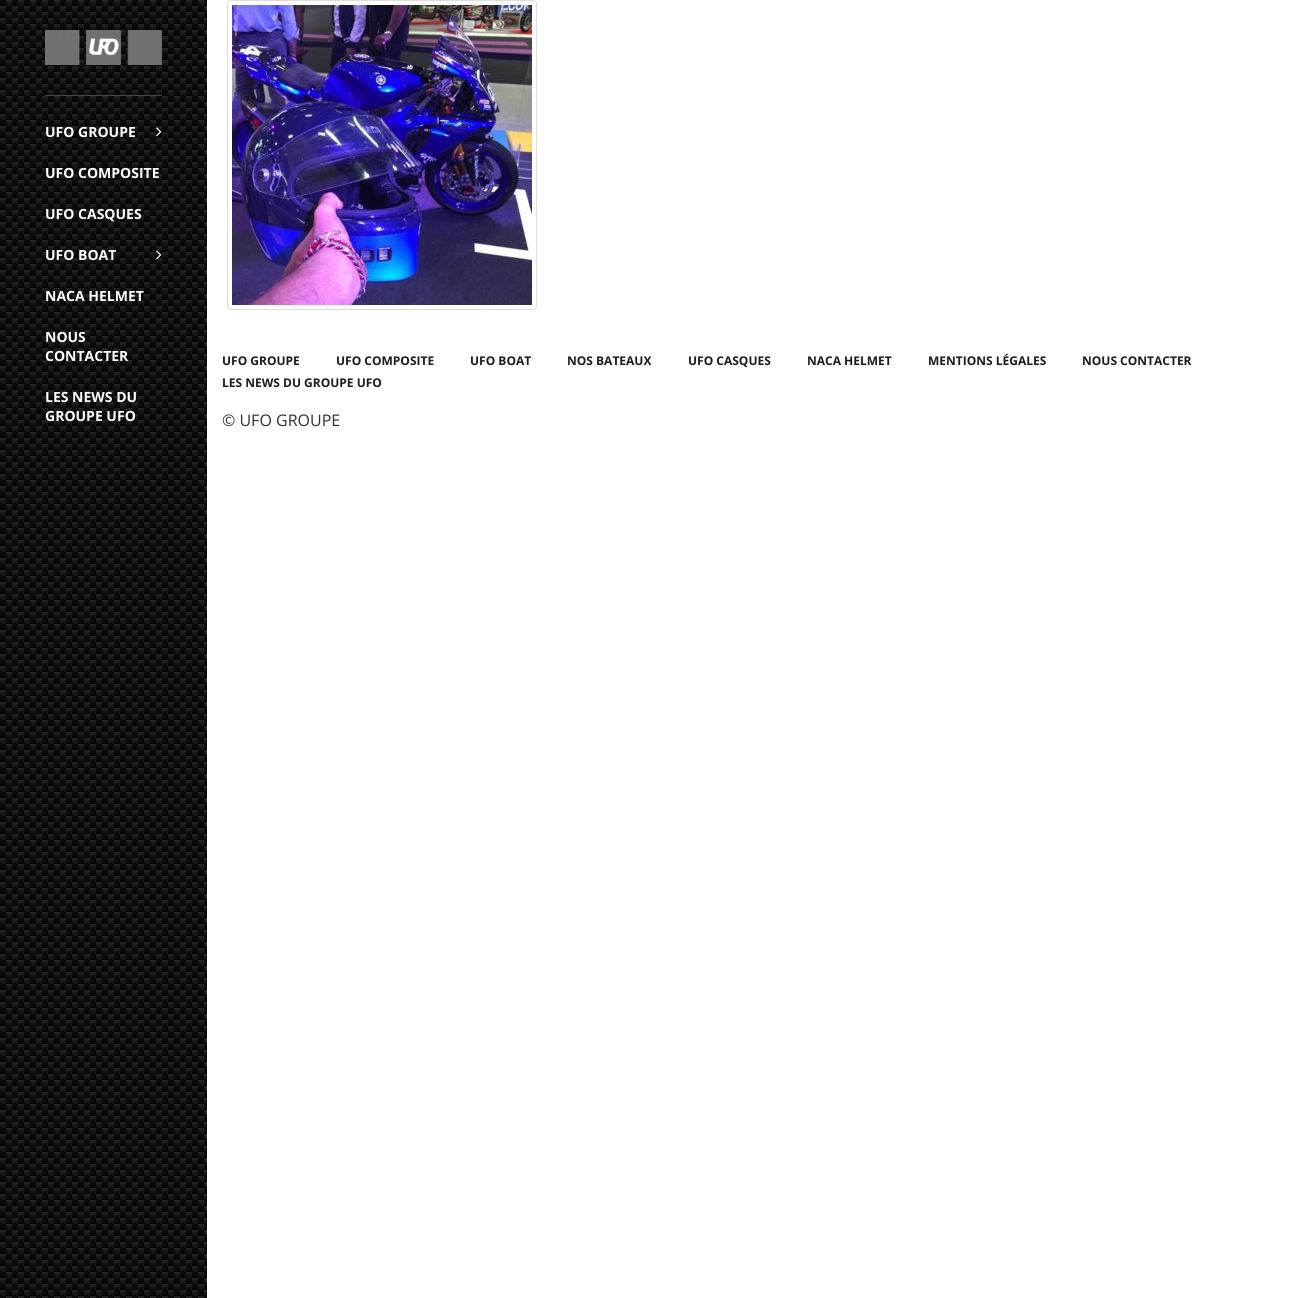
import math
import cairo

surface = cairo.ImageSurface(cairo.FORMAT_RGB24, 1308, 1298)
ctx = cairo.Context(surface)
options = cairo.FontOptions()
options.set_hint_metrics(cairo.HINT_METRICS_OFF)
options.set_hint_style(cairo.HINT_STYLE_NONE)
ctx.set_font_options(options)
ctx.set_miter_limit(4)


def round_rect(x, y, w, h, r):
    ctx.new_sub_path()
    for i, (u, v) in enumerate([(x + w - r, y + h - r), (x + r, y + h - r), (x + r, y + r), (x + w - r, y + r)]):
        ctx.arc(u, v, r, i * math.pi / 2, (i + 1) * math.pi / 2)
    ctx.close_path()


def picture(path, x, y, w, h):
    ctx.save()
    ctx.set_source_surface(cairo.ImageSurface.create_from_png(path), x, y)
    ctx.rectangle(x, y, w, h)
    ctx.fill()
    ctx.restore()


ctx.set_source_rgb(1, 1, 1)
ctx.paint()
picture("img1.png", 0, 0, 207, 1298)
ctx.set_source_rgb(0.275, 0.275, 0.275)
ctx.rectangle(45, 95, 117, 1)
ctx.fill()
picture("img2.png", 45, 30, 117, 35)
ctx.select_font_face("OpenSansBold", cairo.FONT_SLANT_NORMAL, cairo.FONT_WEIGHT_BOLD)
ctx.set_font_size(14)
ctx.set_source_rgb(1, 1, 1)
ctx.move_to(45, 137)
ctx.show_text("UFO GROUPE")
picture("img3.png", 156, 127, 6, 10)
ctx.move_to(45, 178)
ctx.show_text("UFO COMPOSITE")
ctx.move_to(45, 219)
ctx.show_text("UFO CASQUES")
ctx.move_to(45, 260)
ctx.show_text("UFO BOAT")
picture("img4.png", 156, 250, 6, 10)
ctx.move_to(45, 301)
ctx.show_text("NACA HELMET")
ctx.move_to(45, 342)
ctx.show_text("NOUS")
ctx.move_to(45, 361)
ctx.show_text("CONTACTER")
ctx.move_to(45, 402)
ctx.show_text("LES NEWS DU")
ctx.move_to(45, 421)
ctx.show_text("GROUPE UFO")
round_rect(227.5, 0.5, 309, 309, 3.5)
ctx.set_source_rgb(0.867, 0.867, 0.867)
ctx.set_line_width(1)
ctx.stroke()
picture("img5.png", 232, 5, 300, 300)
ctx.set_font_size(12)
ctx.set_source_rgb(0.11, 0.11, 0.11)
ctx.move_to(222, 365)
ctx.show_text("UFO GROUPE")
ctx.move_to(336, 365)
ctx.show_text("UFO COMPOSITE")
ctx.move_to(470, 365)
ctx.show_text("UFO BOAT")
ctx.move_to(567, 365)
ctx.show_text("NOS BATEAUX")
ctx.move_to(688, 365)
ctx.show_text("UFO CASQUES")
ctx.move_to(807, 365)
ctx.show_text("NACA HELMET")
ctx.move_to(928, 365)
ctx.show_text("MENTIONS LÉGALES")
ctx.move_to(1082, 365)
ctx.show_text("NOUS CONTACTER")
ctx.move_to(222, 387)
ctx.show_text("LES NEWS DU GROUPE UFO")
ctx.select_font_face("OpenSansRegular")
ctx.set_font_size(16)
ctx.set_source_rgb(0.188, 0.188, 0.188)
ctx.move_to(222, 426)
ctx.show_text("© UFO GROUPE")
surface.write_to_png("page.png")
